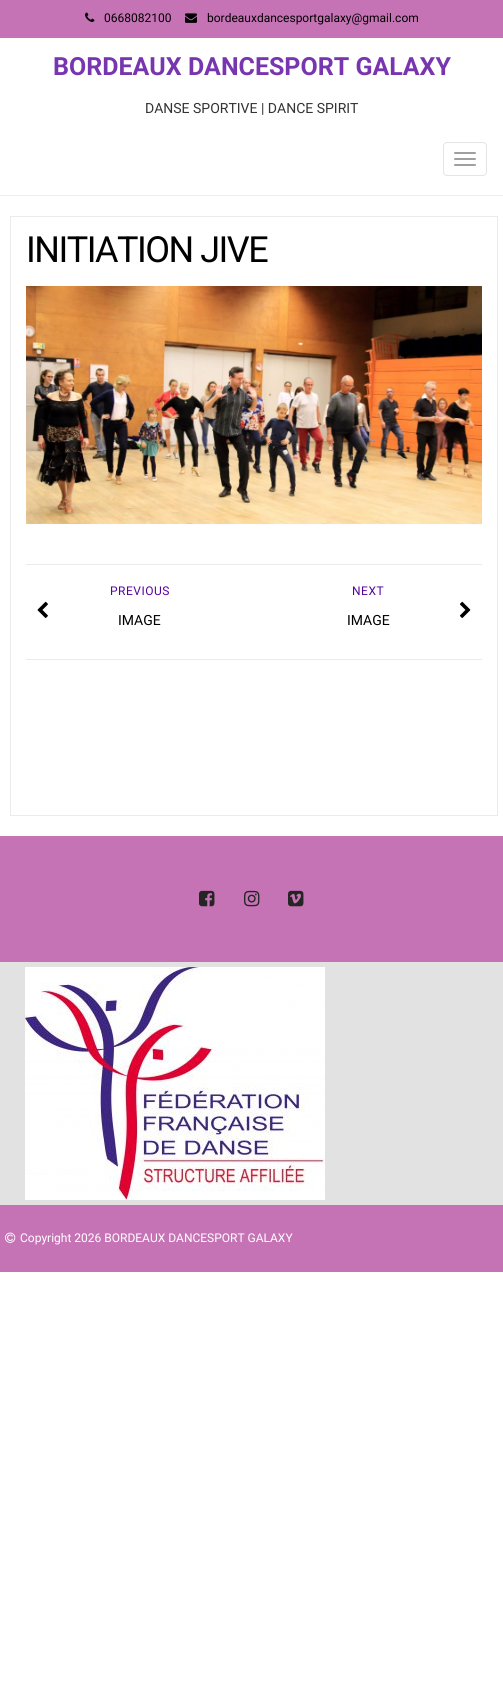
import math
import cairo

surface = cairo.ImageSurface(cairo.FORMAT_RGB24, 503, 1685)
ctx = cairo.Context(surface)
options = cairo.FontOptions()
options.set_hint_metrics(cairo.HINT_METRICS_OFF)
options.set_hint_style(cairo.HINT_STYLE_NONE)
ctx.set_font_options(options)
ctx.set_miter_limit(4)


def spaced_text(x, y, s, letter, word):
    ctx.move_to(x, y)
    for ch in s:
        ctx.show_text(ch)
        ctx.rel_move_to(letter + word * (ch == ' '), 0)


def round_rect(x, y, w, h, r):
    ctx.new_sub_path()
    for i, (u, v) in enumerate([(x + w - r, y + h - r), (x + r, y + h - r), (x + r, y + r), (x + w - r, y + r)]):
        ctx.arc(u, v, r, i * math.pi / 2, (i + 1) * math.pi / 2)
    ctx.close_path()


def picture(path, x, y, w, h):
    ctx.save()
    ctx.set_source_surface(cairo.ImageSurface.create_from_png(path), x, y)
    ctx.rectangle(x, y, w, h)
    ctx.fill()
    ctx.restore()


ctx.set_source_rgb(1, 1, 1)
ctx.paint()
ctx.set_source_rgb(0.776, 0.451, 0.714)
ctx.rectangle(0, 0, 503, 38)
ctx.fill()
picture("img1.png", 85, 12, 10, 10)
ctx.select_font_face("Roboto")
ctx.set_font_size(12)
ctx.set_source_rgb(0, 0, 0)
ctx.move_to(104, 22)
ctx.show_text("0668082100")
picture("img2.png", 185, 13, 12, 10)
ctx.move_to(207, 22)
ctx.show_text("bordeauxdancesportgalaxy@gmail.com")
ctx.set_source_rgb(0.933, 0.933, 0.933)
ctx.rectangle(0, 195, 503, 1)
ctx.fill()
ctx.select_font_face("Roboto", cairo.FONT_SLANT_NORMAL, cairo.FONT_WEIGHT_BOLD)
ctx.set_font_size(25)
ctx.set_source_rgb(0.467, 0.212, 0.686)
ctx.move_to(53, 75)
ctx.show_text("BORDEAUX DANCESPORT GALAXY")
ctx.select_font_face("Roboto")
ctx.set_font_size(14)
ctx.set_source_rgb(0.2, 0.2, 0.2)
ctx.move_to(145, 113)
ctx.show_text("DANSE SPORTIVE | DANCE SPIRIT")
round_rect(443.5, 142.5, 43, 33, 3.5)
ctx.set_source_rgb(0.894, 0.894, 0.894)
ctx.set_line_width(1)
ctx.stroke()
ctx.set_source_rgb(0.627, 0.627, 0.627)
round_rect(454, 152, 22, 2, 1)
ctx.fill()
round_rect(454, 158, 22, 2, 1)
ctx.fill()
round_rect(454, 164, 22, 2, 1)
ctx.fill()
ctx.rectangle(10.5, 216.5, 487, 599)
ctx.set_source_rgb(0.918, 0.918, 0.918)
ctx.stroke()
ctx.set_font_size(36)
ctx.set_source_rgb(0, 0, 0)
spaced_text(26, 262, "INITIATION JIVE", -1.5, 0)
picture("img3.png", 26, 286, 456, 238)
ctx.set_source_rgb(0.918, 0.918, 0.918)
ctx.rectangle(26, 564, 456, 1)
ctx.fill()
ctx.rectangle(26, 659, 456, 1)
ctx.fill()
ctx.set_font_size(12)
ctx.set_source_rgb(0.333, 0.016, 0.608)
spaced_text(110, 595, "PREVIOUS", 0.5, 0)
picture("img4.png", 37, 601, 11, 17)
ctx.set_font_size(14)
ctx.set_source_rgb(0, 0, 0)
ctx.move_to(118, 625)
ctx.show_text("IMAGE")
ctx.set_font_size(12)
ctx.set_source_rgb(0.333, 0.016, 0.608)
spaced_text(352, 595, "NEXT", 0.5, 0)
picture("img5.png", 459, 601, 12, 17)
ctx.set_font_size(14)
ctx.set_source_rgb(0, 0, 0)
ctx.move_to(347, 625)
ctx.show_text("IMAGE")
ctx.set_source_rgb(0.776, 0.451, 0.714)
ctx.rectangle(0, 836, 503, 126)
ctx.fill()
picture("img6.png", 199, 890, 16, 17)
picture("img7.png", 244, 890, 16, 17)
picture("img8.png", 288, 890, 16, 17)
ctx.set_source_rgb(0.886, 0.886, 0.886)
ctx.rectangle(0, 962, 503, 243)
ctx.fill()
picture("img9.png", 25, 967, 300, 233)
ctx.set_source_rgb(0.776, 0.451, 0.714)
ctx.rectangle(0, 1205, 503, 67)
ctx.fill()
picture("img10.png", 5, 1232, 11, 11)
ctx.set_font_size(12)
ctx.set_source_rgb(1, 1, 1)
ctx.move_to(20, 1242)
ctx.show_text("Copyright 2026 BORDEAUX DANCESPORT GALAXY")
surface.write_to_png("page.png")
